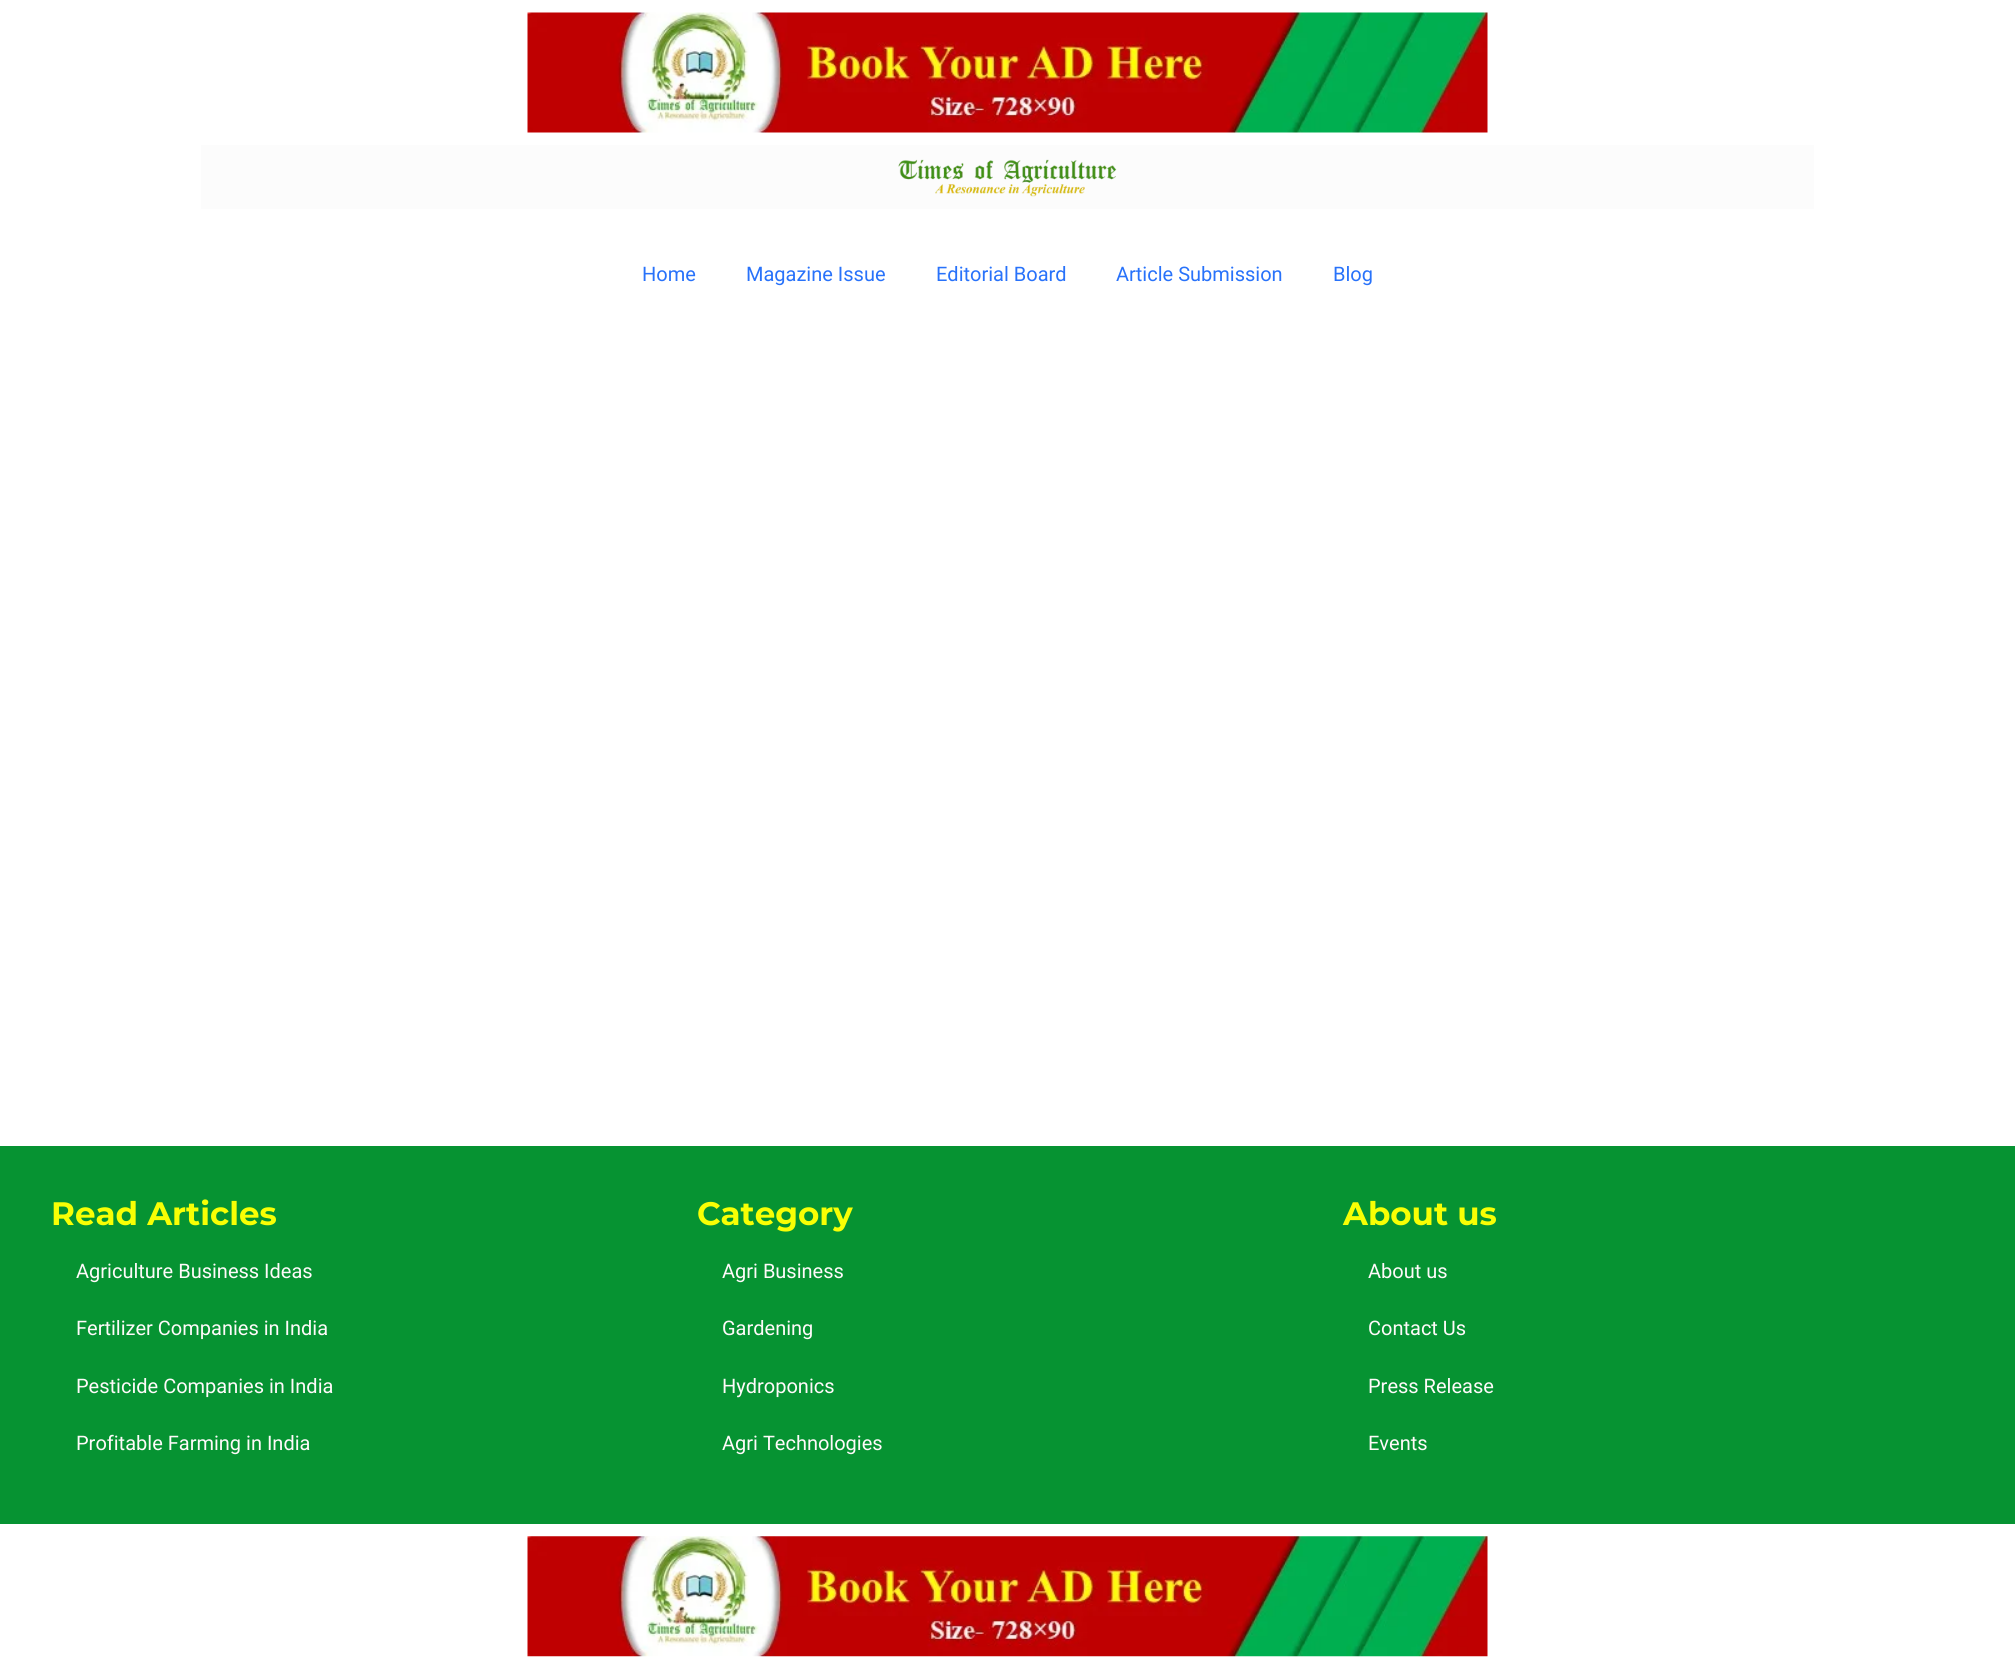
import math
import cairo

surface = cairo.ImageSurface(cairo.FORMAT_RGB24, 2015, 1668)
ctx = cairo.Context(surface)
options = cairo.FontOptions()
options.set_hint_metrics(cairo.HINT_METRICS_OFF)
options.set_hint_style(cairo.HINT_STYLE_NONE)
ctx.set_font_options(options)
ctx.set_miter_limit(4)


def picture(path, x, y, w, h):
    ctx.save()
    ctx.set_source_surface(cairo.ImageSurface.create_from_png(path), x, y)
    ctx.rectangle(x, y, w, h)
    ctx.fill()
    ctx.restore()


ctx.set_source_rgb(1, 1, 1)
ctx.paint()
picture("img1.png", 527, 12, 961, 121)
ctx.set_source_rgb(0.988, 0.988, 0.988)
ctx.rectangle(201, 145, 1613, 64)
ctx.fill()
picture("img2.png", 898, 159, 219, 38)
ctx.select_font_face("Roboto")
ctx.set_font_size(20)
ctx.set_source_rgb(0.157, 0.447, 0.98)
ctx.move_to(642, 281)
ctx.show_text("Home")
ctx.move_to(746, 281)
ctx.show_text("Magazine Issue")
ctx.move_to(936, 281)
ctx.show_text("Editorial Board")
ctx.move_to(1116, 281)
ctx.show_text("Article Submission")
ctx.move_to(1333, 281)
ctx.show_text("Blog")
ctx.set_source_rgb(0.027, 0.576, 0.196)
ctx.rectangle(0, 1146, 2015, 378)
ctx.fill()
ctx.select_font_face("Montserrat", cairo.FONT_SLANT_NORMAL, cairo.FONT_WEIGHT_BOLD)
ctx.set_font_size(32.5)
ctx.set_source_rgb(0.969, 1, 0.016)
ctx.move_to(51, 1225)
ctx.show_text("Read Articles")
ctx.select_font_face("Roboto")
ctx.set_font_size(20)
ctx.set_source_rgb(1, 0.98, 0.98)
ctx.move_to(76, 1278)
ctx.show_text("Agriculture Business Ideas")
ctx.move_to(76, 1335)
ctx.show_text("Fertilizer Companies in India")
ctx.move_to(76, 1393)
ctx.show_text("Pesticide Companies in India")
ctx.move_to(76, 1450)
ctx.show_text("Profitable Farming in India")
ctx.select_font_face("Montserrat", cairo.FONT_SLANT_NORMAL, cairo.FONT_WEIGHT_BOLD)
ctx.set_font_size(32.5)
ctx.set_source_rgb(0.969, 1, 0.016)
ctx.move_to(697, 1225)
ctx.show_text("Category")
ctx.select_font_face("Roboto")
ctx.set_font_size(20)
ctx.set_source_rgb(1, 0.98, 0.98)
ctx.move_to(722, 1278)
ctx.show_text("Agri Business")
ctx.move_to(722, 1335)
ctx.show_text("Gardening")
ctx.move_to(722, 1393)
ctx.show_text("Hydroponics")
ctx.move_to(722, 1450)
ctx.show_text("Agri Technologies")
ctx.select_font_face("Montserrat", cairo.FONT_SLANT_NORMAL, cairo.FONT_WEIGHT_BOLD)
ctx.set_font_size(32.5)
ctx.set_source_rgb(0.969, 1, 0.016)
ctx.move_to(1343, 1225)
ctx.show_text("About us")
ctx.select_font_face("Roboto")
ctx.set_font_size(20)
ctx.set_source_rgb(1, 0.98, 0.98)
ctx.move_to(1368, 1278)
ctx.show_text("About us")
ctx.move_to(1368, 1335)
ctx.show_text("Contact Us")
ctx.move_to(1368, 1393)
ctx.show_text("Press Release")
ctx.move_to(1368, 1450)
ctx.show_text("Events")
picture("img3.png", 527, 1536, 961, 121)
surface.write_to_png("page.png")
